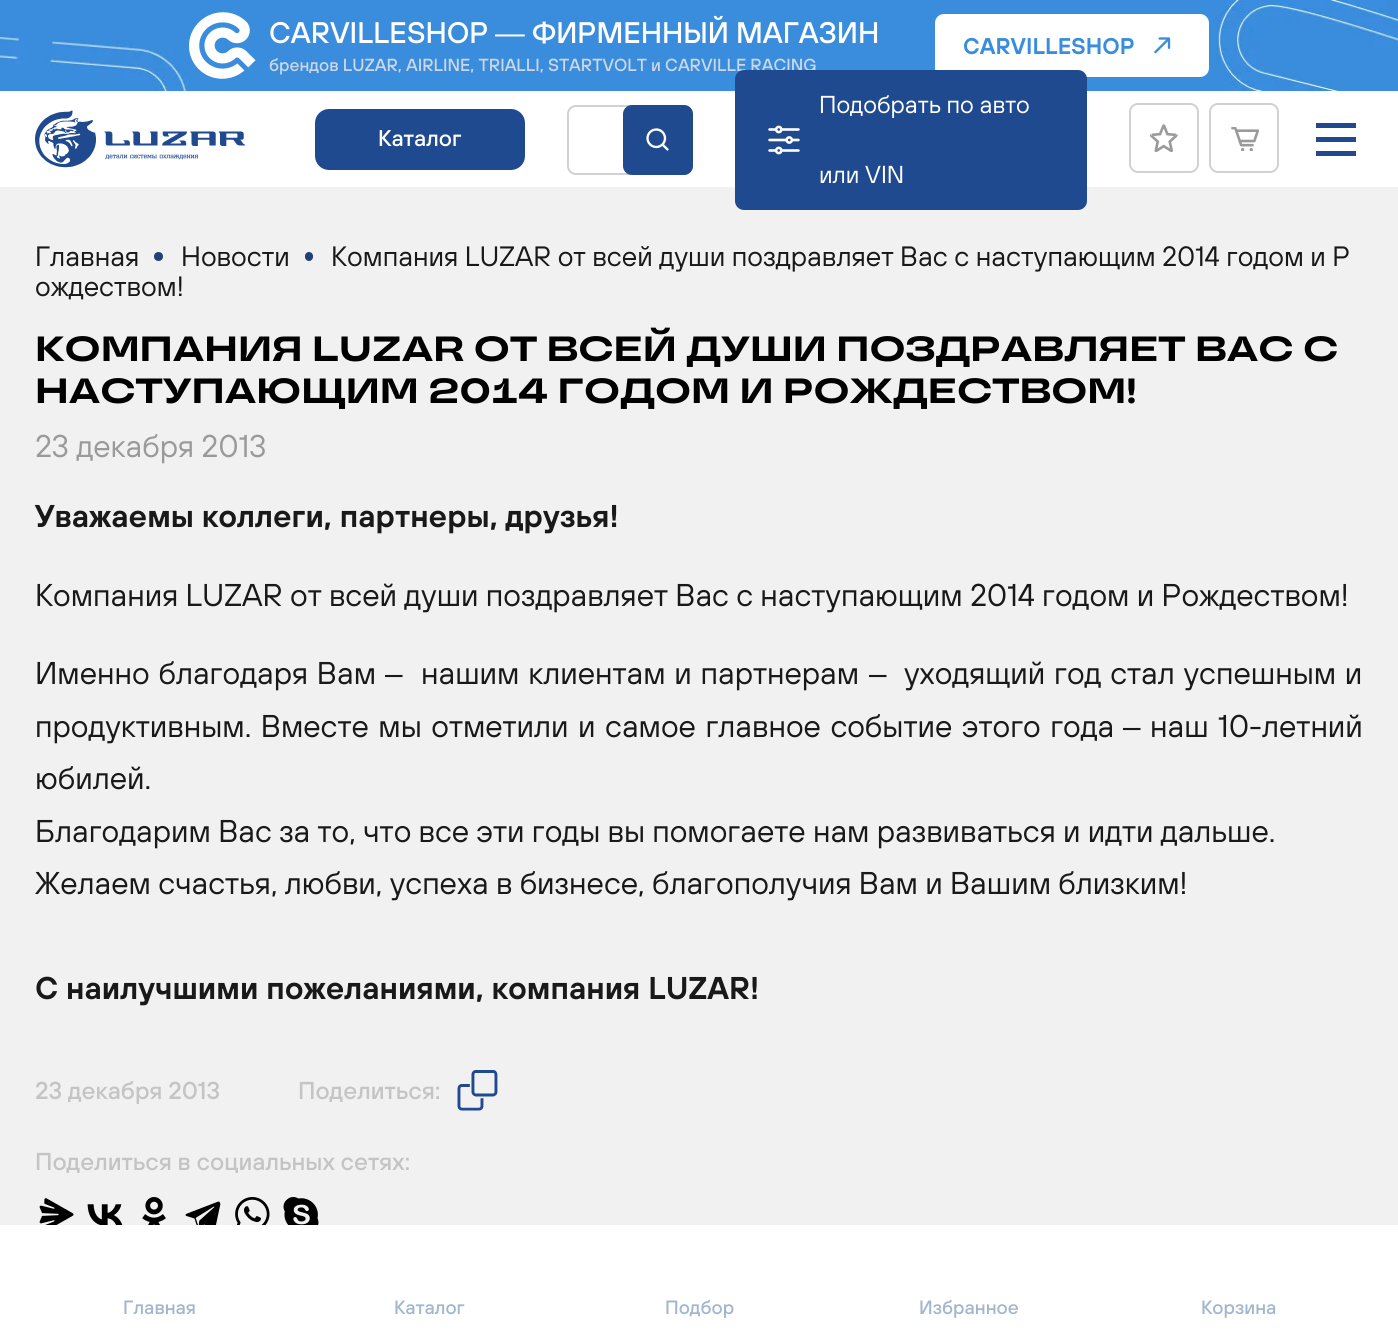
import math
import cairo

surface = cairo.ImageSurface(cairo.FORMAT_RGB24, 1398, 1339)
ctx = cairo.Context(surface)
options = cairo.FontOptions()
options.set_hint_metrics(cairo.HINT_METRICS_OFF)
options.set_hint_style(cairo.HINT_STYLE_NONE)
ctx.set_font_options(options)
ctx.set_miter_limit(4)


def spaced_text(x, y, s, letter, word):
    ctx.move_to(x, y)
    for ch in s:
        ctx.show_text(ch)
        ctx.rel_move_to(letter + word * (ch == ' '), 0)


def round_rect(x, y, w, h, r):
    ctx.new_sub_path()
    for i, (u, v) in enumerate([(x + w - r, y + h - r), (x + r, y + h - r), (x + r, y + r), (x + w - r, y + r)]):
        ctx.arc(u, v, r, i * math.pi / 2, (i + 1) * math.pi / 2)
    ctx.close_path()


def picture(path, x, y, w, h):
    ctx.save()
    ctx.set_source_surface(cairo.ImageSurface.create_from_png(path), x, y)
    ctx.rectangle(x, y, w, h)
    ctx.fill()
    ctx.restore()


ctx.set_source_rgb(0.945, 0.945, 0.949)
ctx.paint()
picture("img1.png", 0, 0, 1398, 91)
picture("img2.png", 189, 12, 67, 67)
ctx.select_font_face("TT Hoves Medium")
ctx.set_font_size(29.75)
ctx.set_source_rgb(1, 1, 1)
ctx.move_to(269, 43)
ctx.show_text("CARVILLESHOP")
ctx.select_font_face("Liberation Sans")
ctx.move_to(495, 43)
ctx.show_text("—")
ctx.select_font_face("TT Hoves Medium")
ctx.move_to(532, 43)
ctx.show_text("ФИРМЕННЫЙ МАГАЗИН")
ctx.set_font_size(17.5)
ctx.set_source_rgb(0.8, 0.843, 0.898)
ctx.move_to(269, 71)
ctx.show_text("брендов LUZAR, AIRLINE, TRIALLI, STARTVOLT и CARVILLE RACING")
ctx.set_source_rgb(1, 1, 1)
round_rect(935, 14, 274, 63, 9)
ctx.fill()
picture("img3.png", 1154, 37, 17, 17)
ctx.select_font_face("TT Hoves SemiBold")
ctx.set_font_size(22.75)
ctx.set_source_rgb(0.227, 0.553, 0.871)
ctx.move_to(963, 54)
ctx.show_text("CARVILLESHOP")
ctx.set_source_rgb(1, 1, 1)
ctx.rectangle(0, 91, 1398, 96)
ctx.fill()
picture("img4.png", 35, 110, 210, 58)
ctx.set_source_rgb(0.125, 0.29, 0.561)
round_rect(315, 109, 210, 61, 14)
ctx.fill()
ctx.select_font_face("TT Hoves Medium")
ctx.set_source_rgb(1, 1, 1)
ctx.move_to(378, 146)
ctx.show_text("Каталог")
round_rect(568, 106, 124, 68, 8)
ctx.set_source_rgb(0.82, 0.82, 0.824)
ctx.stroke()
ctx.set_source_rgb(0.125, 0.29, 0.561)
round_rect(623, 105, 70, 70, 9)
ctx.fill()
picture("img5.png", 646, 128, 23, 23)
round_rect(735, 70, 352, 140, 9)
ctx.fill()
picture("img6.png", 768, 125, 32, 30)
ctx.select_font_face("TT Hoves")
ctx.set_font_size(24.5)
ctx.set_source_rgb(1, 1, 1)
ctx.move_to(819, 113)
ctx.show_text("Подобрать по авто")
ctx.move_to(819, 183)
ctx.show_text("или VIN")
picture("img7.png", 1150, 124, 28, 28)
round_rect(1130, 104, 68, 68, 8)
ctx.set_source_rgb(0.82, 0.82, 0.824)
ctx.stroke()
picture("img8.png", 1231, 127, 28, 24)
round_rect(1210, 104, 68, 68, 8)
ctx.stroke()
ctx.set_source_rgb(0.125, 0.29, 0.561)
ctx.rectangle(1316, 123, 40, 5)
ctx.fill()
ctx.rectangle(1316, 137, 40, 5)
ctx.fill()
ctx.rectangle(1316, 151, 40, 5)
ctx.fill()
ctx.set_font_size(28)
ctx.set_source_rgb(0.102, 0.098, 0.098)
ctx.move_to(35, 266)
ctx.show_text("Главная")
ctx.set_source_rgb(0.129, 0.251, 0.463)
ctx.new_path()
ctx.arc(158.5, 256.5, 4.5, 0, 2 * math.pi)
ctx.fill()
ctx.set_source_rgb(0.102, 0.098, 0.098)
ctx.move_to(181, 266)
ctx.show_text("Новости")
ctx.set_source_rgb(0.129, 0.251, 0.463)
round_rect(305, 252, 8, 9, 4)
ctx.fill()
ctx.set_source_rgb(0.102, 0.098, 0.098)
ctx.move_to(331, 266)
ctx.show_text("Компания LUZAR от всей души поздравляет Вас с наступающим 2014 годом и Р")
ctx.move_to(35, 296)
ctx.show_text("ождеством!")
ctx.select_font_face("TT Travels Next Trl", cairo.FONT_SLANT_NORMAL, cairo.FONT_WEIGHT_BOLD)
ctx.set_font_size(35)
ctx.set_source_rgb(0, 0, 0)
ctx.move_to(35, 361)
ctx.show_text("КОМПАНИЯ LUZAR ОТ ВСЕЙ ДУШИ ПОЗДРАВЛЯЕТ ВАС С")
ctx.move_to(35, 403)
ctx.show_text("НАСТУПАЮЩИМ 2014 ГОДОМ И РОЖДЕСТВОМ!")
ctx.select_font_face("TT Hoves")
ctx.set_font_size(31.5)
ctx.set_source_rgb(0.604, 0.604, 0.604)
ctx.move_to(35, 457)
ctx.show_text("23 декабря 2013")
ctx.select_font_face("TT Hoves SemiBold")
ctx.set_source_rgb(0.102, 0.098, 0.098)
ctx.move_to(35, 527)
ctx.show_text("Уважаемы коллеги, партнеры, друзья!")
ctx.select_font_face("TT Hoves")
ctx.move_to(35, 606)
ctx.show_text("Компания LUZAR от всей души поздравляет Вас с наступающим 2014 годом и Рождеством!")
spaced_text(35, 684, "Именно благодаря Вам", 0, 1.5)
ctx.select_font_face("Liberation Sans")
ctx.move_to(385, 684)
ctx.show_text("–")
ctx.select_font_face("TT Hoves")
spaced_text(421, 684, "нашим клиентам и партнерам", 0, 1.5)
ctx.select_font_face("Liberation Sans")
ctx.move_to(869, 684)
ctx.show_text("–")
ctx.select_font_face("TT Hoves")
spaced_text(904, 684, "уходящий год стал успешным и", 0, 1.5)
spaced_text(35, 737, "продуктивным. Вместе мы отметили и самое главное событие этого года", 0, 2.25)
ctx.select_font_face("Liberation Sans")
ctx.move_to(1123, 737)
ctx.show_text("–")
ctx.select_font_face("TT Hoves")
spaced_text(1150, 737, "наш 10-летний", 0, 2.25)
ctx.move_to(35, 789)
ctx.show_text("юбилей.")
ctx.move_to(35, 842)
ctx.show_text("Благодарим Вас за то, что все эти годы вы помогаете нам развиваться и идти дальше.")
ctx.move_to(35, 894)
ctx.show_text("Желаем счастья, любви, успеха в бизнесе, благополучия Вам и Вашим близким!")
ctx.select_font_face("TT Hoves SemiBold")
ctx.move_to(35, 999)
ctx.show_text("С наилучшими пожеланиями, компания LUZAR!")
ctx.select_font_face("TT Hoves Medium")
ctx.set_font_size(24.5)
ctx.set_source_rgb(0.769, 0.769, 0.769)
ctx.move_to(35, 1099)
ctx.show_text("23 декабря 2013")
ctx.move_to(298, 1099)
ctx.show_text("Поделиться:")
picture("img9.png", 457, 1070, 41, 41)
ctx.move_to(35, 1170)
ctx.show_text("Поделиться в социальных сетях:")
picture("img10.png", 39, 1198, 35, 27)
picture("img11.png", 87, 1204, 36, 21)
picture("img12.png", 142, 1197, 24, 28)
picture("img13.png", 185, 1201, 36, 24)
picture("img14.png", 235, 1197, 35, 28)
picture("img15.png", 283, 1197, 36, 28)
ctx.set_source_rgb(1, 1, 1)
ctx.rectangle(0, 1225, 1398, 114)
ctx.fill()
ctx.set_font_size(19.25)
ctx.set_source_rgb(0.635, 0.714, 0.808)
ctx.move_to(123, 1314)
ctx.show_text("Главная")
ctx.move_to(394, 1314)
ctx.show_text("Каталог")
ctx.move_to(665, 1314)
ctx.show_text("Подбор")
ctx.move_to(919, 1314)
ctx.show_text("Избранное")
ctx.move_to(1201, 1314)
ctx.show_text("Корзина")
surface.write_to_png("page.png")
